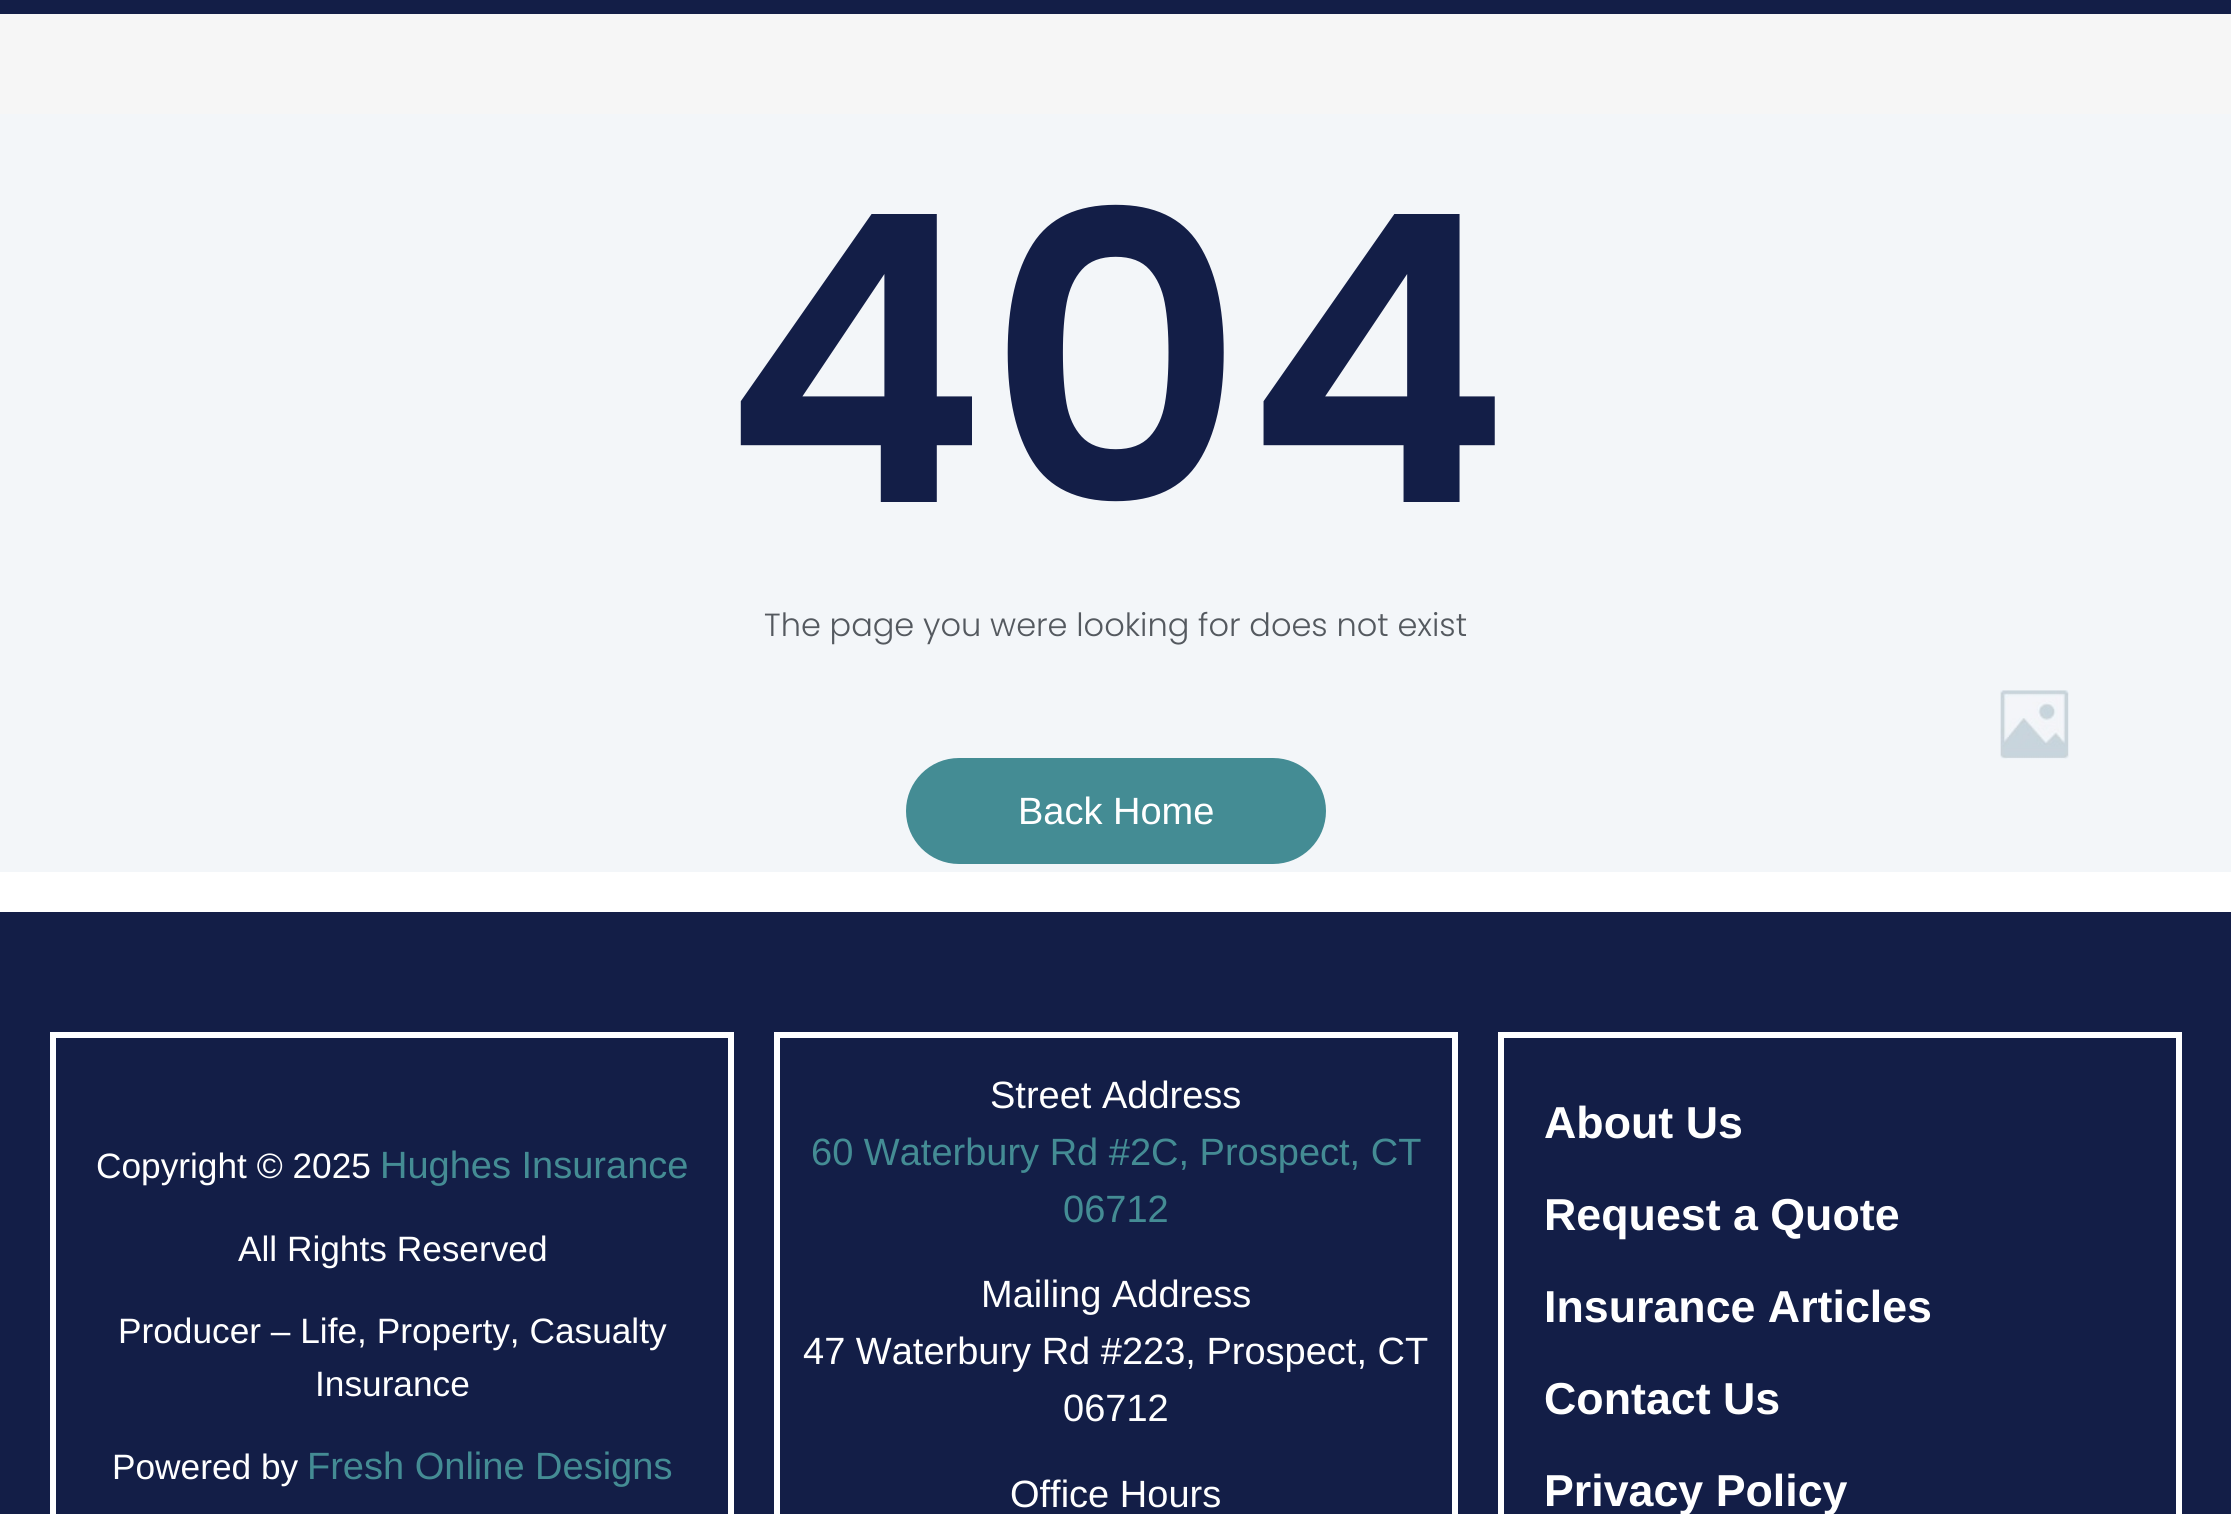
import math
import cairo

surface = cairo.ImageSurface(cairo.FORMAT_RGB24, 2231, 1514)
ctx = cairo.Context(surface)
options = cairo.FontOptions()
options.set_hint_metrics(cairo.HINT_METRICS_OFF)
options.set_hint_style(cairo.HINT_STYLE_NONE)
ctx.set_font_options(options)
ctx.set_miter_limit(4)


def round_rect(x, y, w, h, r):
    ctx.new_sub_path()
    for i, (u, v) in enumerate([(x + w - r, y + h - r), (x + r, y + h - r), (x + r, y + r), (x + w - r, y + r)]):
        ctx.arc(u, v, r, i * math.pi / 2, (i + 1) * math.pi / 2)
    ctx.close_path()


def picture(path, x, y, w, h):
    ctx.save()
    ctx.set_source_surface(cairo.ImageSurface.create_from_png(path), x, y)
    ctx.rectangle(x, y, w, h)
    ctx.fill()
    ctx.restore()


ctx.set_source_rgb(0.961, 0.961, 0.961)
ctx.paint()
ctx.set_source_rgb(0.075, 0.118, 0.278)
ctx.rectangle(0, 0, 2231, 14)
ctx.fill()
ctx.set_source_rgb(0.953, 0.961, 0.973)
ctx.rectangle(0, 114, 2231, 758)
ctx.fill()
picture("img1.png", 2000, 690, 69, 69)
ctx.select_font_face("Poppins SemiBold")
ctx.set_font_size(400)
ctx.set_source_rgb(0.075, 0.118, 0.278)
ctx.move_to(722, 502)
ctx.show_text("404")
ctx.select_font_face("Poppins Light")
ctx.set_font_size(32)
ctx.set_source_rgb(0.329, 0.349, 0.373)
ctx.move_to(764, 636)
ctx.show_text("The page you were looking for does not exist")
ctx.set_source_rgb(0.267, 0.549, 0.58)
round_rect(907, 759, 418, 104, 52)
ctx.fill_preserve()
ctx.stroke()
ctx.select_font_face("Liberation Sans")
ctx.set_font_size(38)
ctx.set_source_rgb(1, 1, 1)
ctx.move_to(1018, 824)
ctx.show_text("Back Home")
ctx.set_source_rgb(0.075, 0.118, 0.278)
ctx.rectangle(0, 912, 2231, 602)
ctx.fill()
ctx.set_source_rgb(1, 1, 1)
ctx.rectangle(0, 872, 2231, 40)
ctx.fill()
ctx.rectangle(53, 1035, 678, 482)
ctx.set_line_width(6)
ctx.stroke()
ctx.set_font_size(35.25)
ctx.move_to(96, 1178)
ctx.show_text("Copyright © 2025")
ctx.set_font_size(38)
ctx.set_source_rgb(0.267, 0.549, 0.58)
ctx.move_to(380, 1178)
ctx.show_text("Hughes Insurance")
ctx.set_font_size(35.25)
ctx.set_source_rgb(1, 1, 1)
ctx.move_to(238, 1261)
ctx.show_text("All Rights Reserved")
ctx.move_to(118, 1343)
ctx.show_text("Producer – Life, Property, Casualty")
ctx.move_to(315, 1396)
ctx.show_text("Insurance")
ctx.move_to(112, 1479)
ctx.show_text("Powered by")
ctx.set_font_size(38)
ctx.set_source_rgb(0.267, 0.549, 0.58)
ctx.move_to(307, 1479)
ctx.show_text("Fresh Online Designs")
ctx.rectangle(777, 1035, 678, 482)
ctx.set_source_rgb(1, 1, 1)
ctx.stroke()
ctx.move_to(990, 1108)
ctx.show_text("Street Address")
ctx.set_source_rgb(0.267, 0.549, 0.58)
ctx.move_to(811, 1165)
ctx.show_text("60 Waterbury Rd #2C, Prospect, CT")
ctx.move_to(1063, 1222)
ctx.show_text("06712")
ctx.set_source_rgb(1, 1, 1)
ctx.move_to(981, 1307)
ctx.show_text("Mailing Address")
ctx.move_to(803, 1364)
ctx.show_text("47 Waterbury Rd #223, Prospect, CT")
ctx.move_to(1063, 1421)
ctx.show_text("06712")
ctx.move_to(1010, 1507)
ctx.show_text("Office Hours")
ctx.rectangle(1501, 1035, 678, 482)
ctx.stroke()
ctx.select_font_face("Liberation Sans", cairo.FONT_SLANT_NORMAL, cairo.FONT_WEIGHT_BOLD)
ctx.set_font_size(44.75)
ctx.move_to(1544, 1138)
ctx.show_text("About Us")
ctx.move_to(1544, 1230)
ctx.show_text("Request a Quote")
ctx.move_to(1544, 1322)
ctx.show_text("Insurance Articles")
ctx.move_to(1544, 1414)
ctx.show_text("Contact Us")
ctx.move_to(1544, 1506)
ctx.show_text("Privacy Policy")
surface.write_to_png("page.png")
